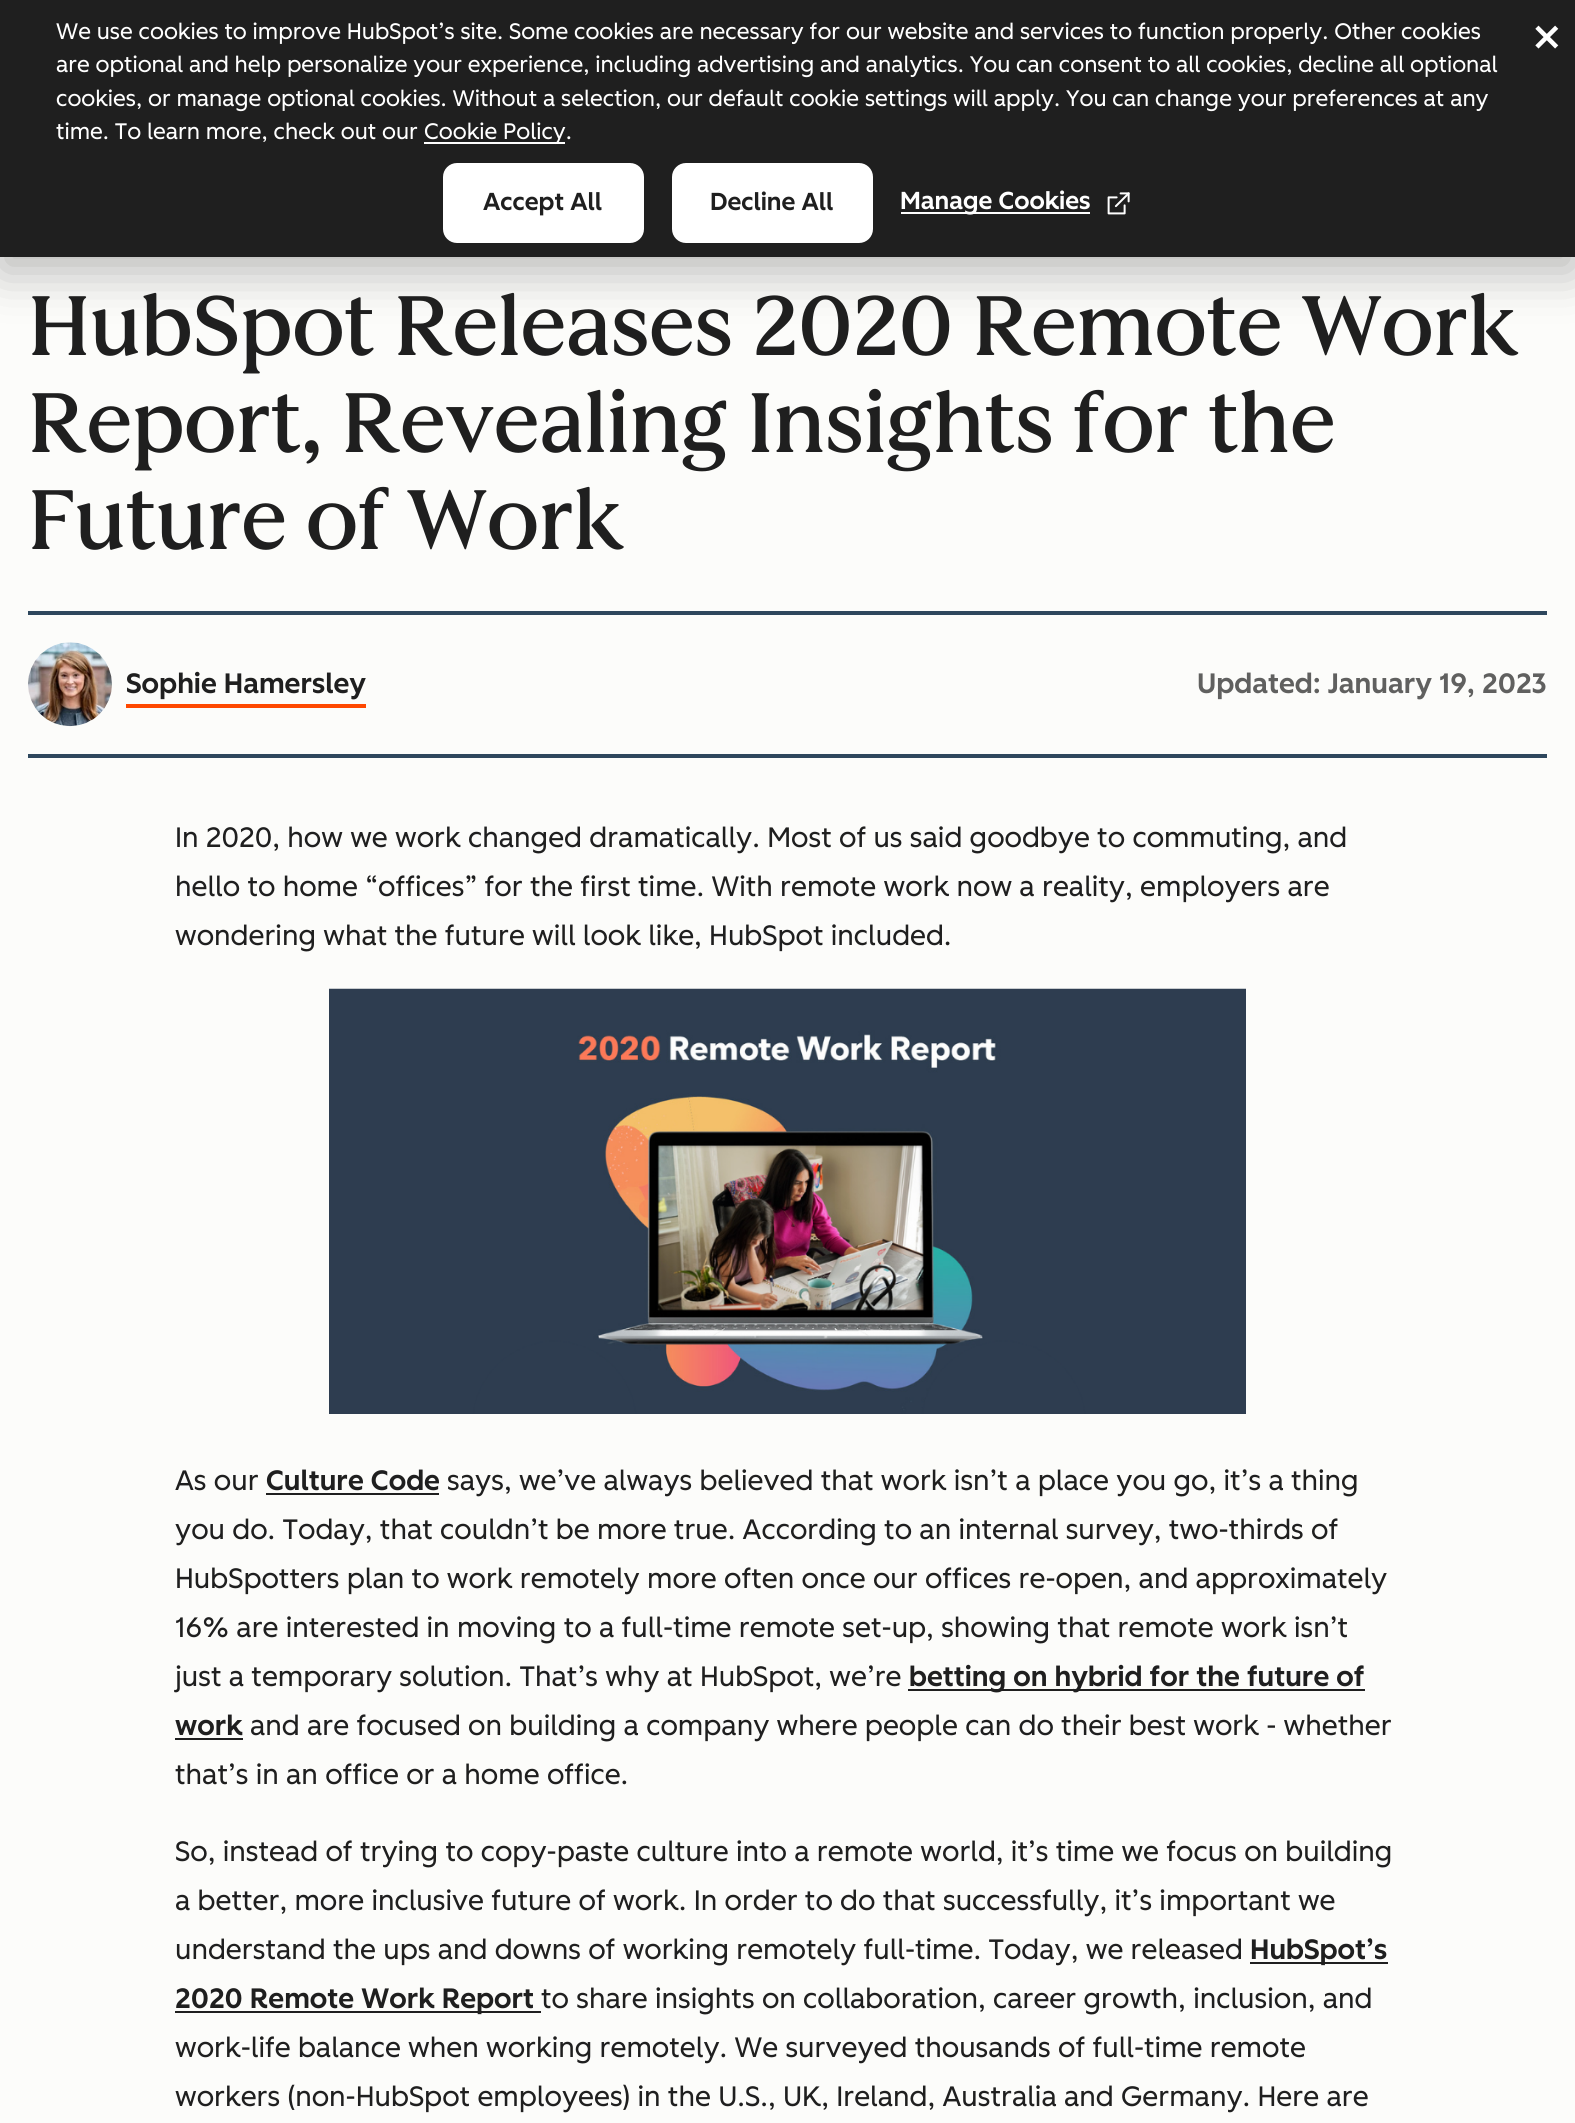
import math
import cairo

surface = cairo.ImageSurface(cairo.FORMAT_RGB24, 1575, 2123)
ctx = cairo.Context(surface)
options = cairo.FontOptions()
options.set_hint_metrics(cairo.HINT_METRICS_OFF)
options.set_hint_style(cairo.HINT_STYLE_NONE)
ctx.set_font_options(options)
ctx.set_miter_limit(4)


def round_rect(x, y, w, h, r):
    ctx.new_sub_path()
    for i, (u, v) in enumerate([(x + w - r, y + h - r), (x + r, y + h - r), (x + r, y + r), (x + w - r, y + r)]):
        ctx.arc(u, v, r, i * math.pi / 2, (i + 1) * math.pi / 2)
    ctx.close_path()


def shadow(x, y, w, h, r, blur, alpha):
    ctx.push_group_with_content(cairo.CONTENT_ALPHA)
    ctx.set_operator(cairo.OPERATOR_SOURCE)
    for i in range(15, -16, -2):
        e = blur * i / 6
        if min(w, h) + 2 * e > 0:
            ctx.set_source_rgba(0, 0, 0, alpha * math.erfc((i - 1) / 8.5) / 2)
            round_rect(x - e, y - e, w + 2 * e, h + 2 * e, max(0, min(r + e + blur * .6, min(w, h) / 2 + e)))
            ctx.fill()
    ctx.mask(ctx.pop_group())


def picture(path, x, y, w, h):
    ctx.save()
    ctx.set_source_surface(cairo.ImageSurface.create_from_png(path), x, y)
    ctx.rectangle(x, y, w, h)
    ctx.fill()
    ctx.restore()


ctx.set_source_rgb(0.988, 0.988, 0.98)
ctx.paint()
ctx.set_source_rgb(0, 0, 0)
shadow(0, 14, 1575, 257, 0, 24.5, 0.28)
ctx.set_source_rgb(0.122, 0.122, 0.122)
ctx.rectangle(0, 0, 1575, 257)
ctx.fill()
ctx.select_font_face("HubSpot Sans")
ctx.set_font_size(22.4)
ctx.set_source_rgb(1, 1, 1)
ctx.move_to(56, 39)
ctx.show_text("We use cookies to improve HubSpot’s site. Some cookies are necessary for our website and services to function properly. Other cookies")
ctx.move_to(56, 72)
ctx.show_text("are optional and help personalize your experience, including advertising and analytics. You can consent to all cookies, decline all optional")
ctx.move_to(56, 106)
ctx.show_text("cookies, or manage optional cookies. Without a selection, our default cookie settings will apply. You can change your preferences at any")
ctx.move_to(56, 139)
ctx.show_text("time. To learn more, check out our")
ctx.rectangle(424, 142, 141, 2)
ctx.fill()
ctx.move_to(424, 139)
ctx.show_text("Cookie Policy.")
round_rect(443, 163, 201, 80, 14)
ctx.fill()
ctx.select_font_face("HubSpot Sans Medium")
ctx.set_font_size(24.5)
ctx.set_source_rgb(0.122, 0.122, 0.122)
ctx.move_to(483, 210)
ctx.show_text("Accept All")
ctx.set_source_rgb(1, 1, 1)
round_rect(672, 163, 201, 80, 14)
ctx.fill()
ctx.set_source_rgb(0.122, 0.122, 0.122)
ctx.move_to(710, 210)
ctx.show_text("Decline All")
ctx.set_source_rgb(1, 1, 1)
ctx.rectangle(901, 212, 189, 2)
ctx.fill()
ctx.move_to(900, 209)
ctx.show_text("Manage Cookies")
picture("img1.png", 1107, 192, 23, 23)
ctx.select_font_face("HubSpot Sans")
ctx.set_font_size(56)
ctx.move_to(1530, 54)
ctx.show_text("×")
ctx.select_font_face("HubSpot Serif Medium")
ctx.set_font_size(84)
ctx.set_source_rgb(0.122, 0.122, 0.122)
ctx.move_to(28, 355)
ctx.show_text("HubSpot Releases 2020 Remote Work")
ctx.move_to(28, 452)
ctx.show_text("Report, Revealing Insights for the")
ctx.move_to(28, 549)
ctx.show_text("Future of Work")
ctx.set_source_rgb(0.18, 0.278, 0.365)
ctx.rectangle(28, 611, 1519, 4)
ctx.fill()
ctx.rectangle(28, 754, 1519, 4)
ctx.fill()
picture("img2.png", 28, 642, 84, 85)
ctx.select_font_face("HubSpot Sans Medium")
ctx.set_font_size(28)
ctx.set_source_rgb(0.122, 0.122, 0.122)
ctx.move_to(126, 693)
ctx.show_text("Sophie Hamersley")
ctx.set_source_rgb(1, 0.282, 0)
ctx.rectangle(126, 704, 240, 4)
ctx.fill()
ctx.set_source_rgb(0.376, 0.376, 0.373)
ctx.move_to(1197, 693)
ctx.show_text("Updated: January 19, 2023")
ctx.select_font_face("HubSpot Sans")
ctx.set_source_rgb(0.122, 0.122, 0.122)
ctx.move_to(175, 847)
ctx.show_text("In 2020, how we work changed dramatically. Most of us said goodbye to commuting, and")
ctx.move_to(175, 896)
ctx.show_text("hello to home “offices” for the first time. With remote work now a reality, employers are")
ctx.move_to(175, 945)
ctx.show_text("wondering what the future will look like, HubSpot included.")
picture("img3.png", 329, 988, 917, 426)
ctx.move_to(175, 1490)
ctx.show_text("As our")
ctx.select_font_face("HubSpot Sans Medium")
ctx.move_to(266, 1490)
ctx.show_text("Culture Code")
ctx.rectangle(266, 1493, 173, 2)
ctx.fill()
ctx.select_font_face("HubSpot Sans")
ctx.move_to(447, 1490)
ctx.show_text("says, we’ve always believed that work isn’t a place you go, it’s a thing")
ctx.move_to(175, 1539)
ctx.show_text("you do. Today, that couldn’t be more true. According to an internal survey, two-thirds of")
ctx.move_to(175, 1588)
ctx.show_text("HubSpotters plan to work remotely more often once our offices re-open, and approximately")
ctx.move_to(175, 1637)
ctx.show_text("16% are interested in moving to a full-time remote set-up, showing that remote work isn’t")
ctx.move_to(175, 1686)
ctx.show_text("just a temporary solution. That’s why at HubSpot, we’re")
ctx.rectangle(908, 1689, 457, 2)
ctx.fill()
ctx.select_font_face("HubSpot Sans Medium")
ctx.move_to(909, 1686)
ctx.show_text("betting on hybrid for the future of")
ctx.move_to(175, 1735)
ctx.show_text("work")
ctx.rectangle(175, 1738, 68, 2)
ctx.fill()
ctx.select_font_face("HubSpot Sans")
ctx.move_to(250, 1735)
ctx.show_text("and are focused on building a company where people can do their best work - whether")
ctx.move_to(175, 1784)
ctx.show_text("that’s in an office or a home office.")
ctx.move_to(175, 1861)
ctx.show_text("So, instead of trying to copy-paste culture into a remote world, it’s time we focus on building")
ctx.move_to(175, 1910)
ctx.show_text("a better, more inclusive future of work. In order to do that successfully, it’s important we")
ctx.move_to(175, 1959)
ctx.show_text("understand the ups and downs of working remotely full-time. Today, we released")
ctx.rectangle(1250, 1962, 138, 2)
ctx.fill()
ctx.select_font_face("HubSpot Sans Medium")
ctx.move_to(1250, 1959)
ctx.show_text("HubSpot’s")
ctx.rectangle(175, 2011, 366, 2)
ctx.fill()
ctx.move_to(175, 2008)
ctx.show_text("2020 Remote Work Report")
ctx.select_font_face("HubSpot Sans")
ctx.move_to(541, 2008)
ctx.show_text("to share insights on collaboration, career growth, inclusion, and")
ctx.move_to(175, 2057)
ctx.show_text("work-life balance when working remotely. We surveyed thousands of full-time remote")
ctx.move_to(175, 2106)
ctx.show_text("workers (non-HubSpot employees) in the U.S., UK, Ireland, Australia and Germany. Here are")
surface.write_to_png("page.png")
